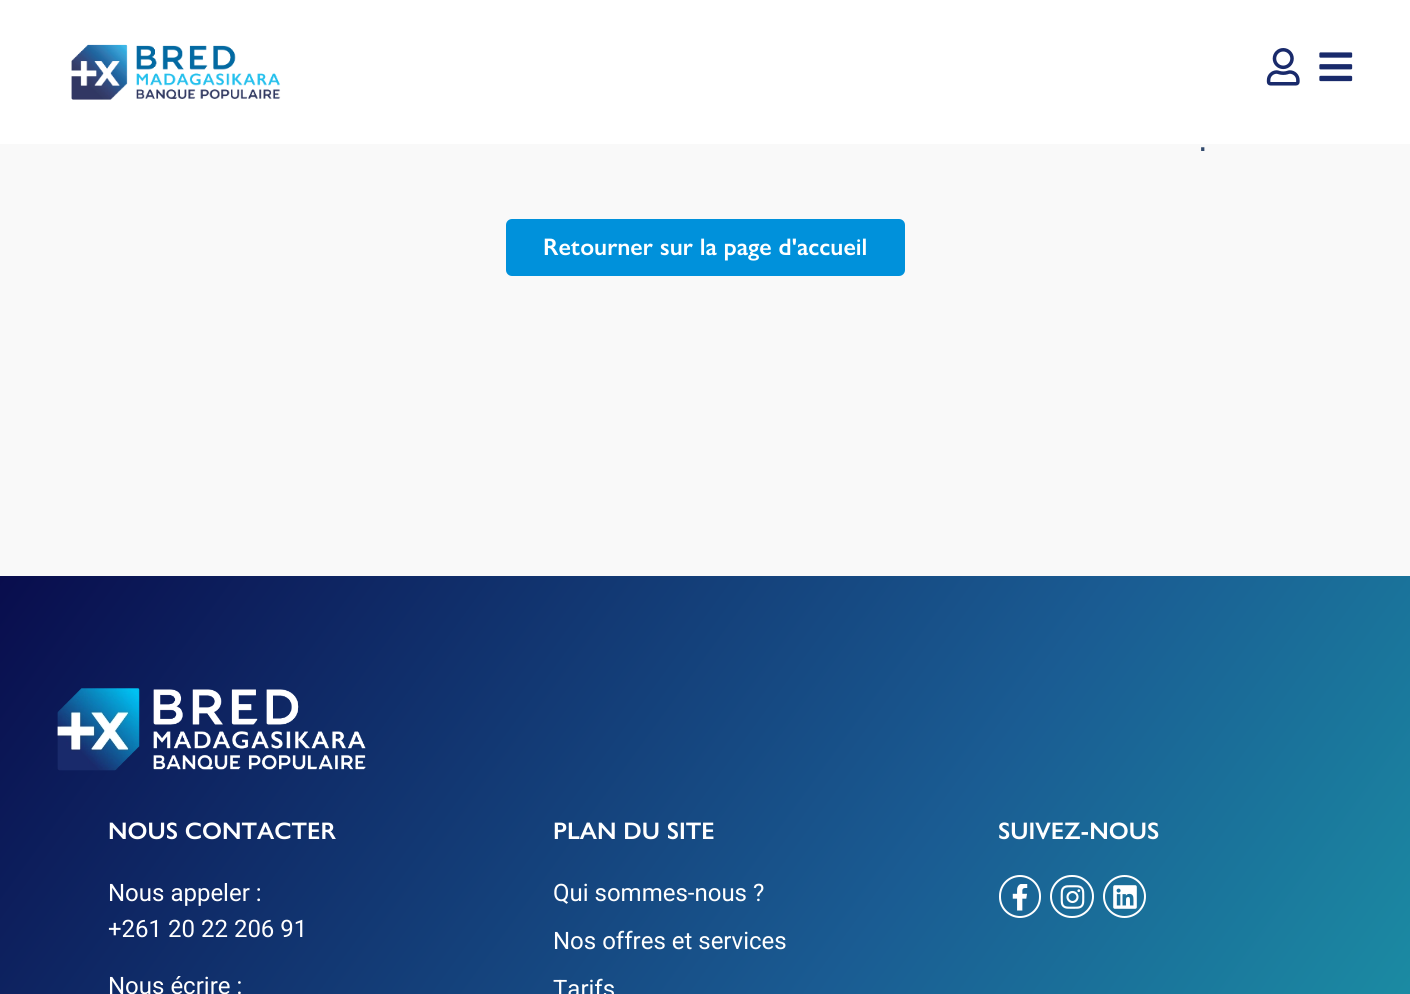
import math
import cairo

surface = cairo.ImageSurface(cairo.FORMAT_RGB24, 1410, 994)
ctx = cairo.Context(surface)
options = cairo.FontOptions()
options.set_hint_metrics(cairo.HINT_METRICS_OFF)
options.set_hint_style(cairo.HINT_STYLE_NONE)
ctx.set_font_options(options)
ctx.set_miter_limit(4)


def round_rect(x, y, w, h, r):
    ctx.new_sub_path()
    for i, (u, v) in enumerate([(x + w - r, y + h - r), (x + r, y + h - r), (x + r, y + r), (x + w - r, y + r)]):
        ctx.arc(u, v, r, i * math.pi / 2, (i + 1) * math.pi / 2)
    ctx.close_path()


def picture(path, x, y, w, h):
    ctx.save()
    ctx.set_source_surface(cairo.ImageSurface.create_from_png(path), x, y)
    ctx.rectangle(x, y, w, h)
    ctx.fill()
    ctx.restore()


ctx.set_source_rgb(0.976, 0.976, 0.976)
ctx.paint()
ctx.set_source_rgb(1, 1, 1)
ctx.rectangle(0, 0, 1410, 144)
ctx.fill()
picture("img1.png", 71, 44, 210, 56)
picture("img2.png", 1266, 48, 34, 38)
picture("img3.png", 1319, 52, 34, 30)
ctx.select_font_face("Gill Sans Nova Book")
ctx.set_font_size(39)
ctx.set_source_rgb(0.196, 0.29, 0.427)
ctx.move_to(1199, 151)
ctx.show_text(".")
ctx.set_source_rgb(0, 0.569, 0.859)
round_rect(507, 220, 397, 55, 5)
ctx.fill_preserve()
ctx.stroke()
ctx.select_font_face("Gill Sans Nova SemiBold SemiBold")
ctx.set_font_size(24)
ctx.set_source_rgb(1, 1, 1)
ctx.move_to(543, 255)
ctx.show_text("Retourner sur la page d'accueil")
gradient = cairo.LinearGradient(68, 482, 1342, 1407)
gradient.add_color_stop_rgba(0, 0.035, 0.051, 0.302, 1)
gradient.add_color_stop_rgba(0.58, 0.102, 0.361, 0.576, 1)
gradient.add_color_stop_rgba(1, 0.106, 0.616, 0.663, 1)
ctx.set_source(gradient)
ctx.rectangle(0, 576, 1410, 418)
ctx.fill()
picture("img4.png", 57, 688, 309, 83)
ctx.set_source_rgb(1, 1, 1)
ctx.move_to(108, 839)
ctx.show_text("NOUS CONTACTER")
ctx.select_font_face("Roboto")
ctx.move_to(108, 901)
ctx.show_text("Nous appeler :")
ctx.move_to(108, 937)
ctx.show_text("+261 20 22 206 91")
ctx.move_to(108, 994)
ctx.show_text("Nous écrire :")
ctx.select_font_face("Gill Sans Nova SemiBold SemiBold")
ctx.move_to(553, 839)
ctx.show_text("PLAN DU SITE")
ctx.select_font_face("Roboto")
ctx.move_to(553, 901)
ctx.show_text("Qui sommes-nous ?")
ctx.move_to(553, 949)
ctx.show_text("Nos offres et services")
ctx.move_to(553, 997)
ctx.show_text("Tarifs")
ctx.select_font_face("Gill Sans Nova SemiBold SemiBold")
ctx.move_to(998, 839)
ctx.show_text("SUIVEZ-NOUS")
round_rect(1000, 876, 40, 41, 20)
ctx.stroke()
picture("img5.png", 1012, 884, 16, 27)
round_rect(1051, 876, 42, 41, 20.5)
ctx.stroke()
picture("img6.png", 1060, 885, 25, 24)
ctx.arc(1124.5, 896.5, 20.5, 0, 2 * math.pi)
ctx.stroke()
picture("img7.png", 1113, 885, 24, 24)
surface.write_to_png("page.png")
